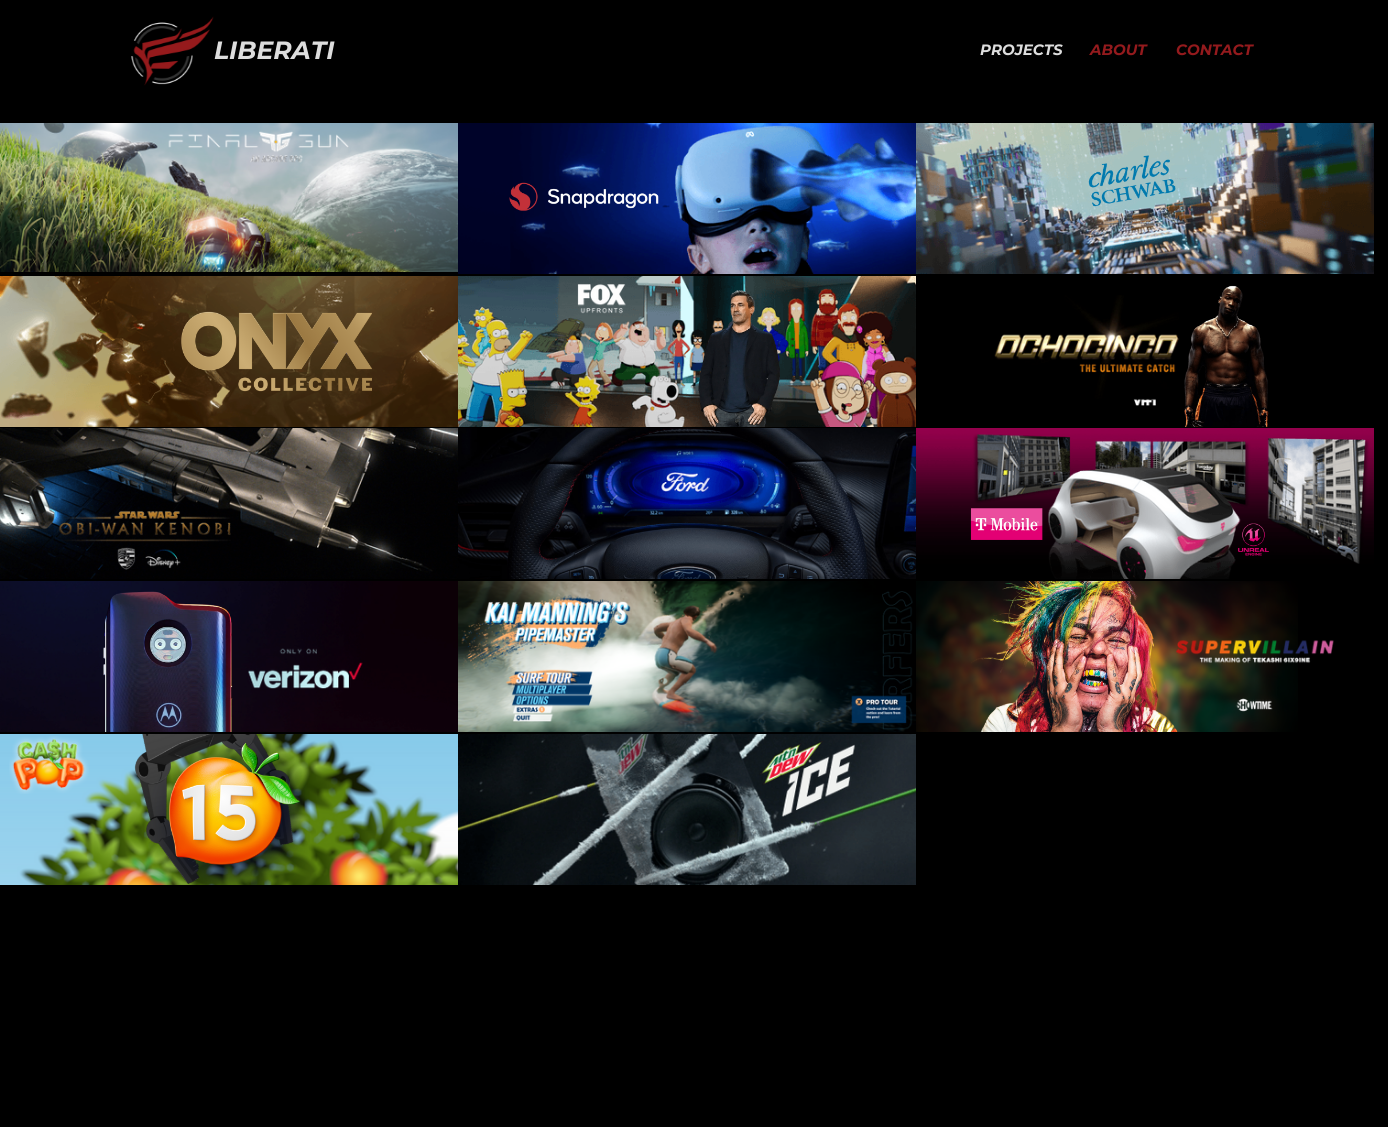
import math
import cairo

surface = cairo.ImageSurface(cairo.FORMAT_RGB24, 1388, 1127)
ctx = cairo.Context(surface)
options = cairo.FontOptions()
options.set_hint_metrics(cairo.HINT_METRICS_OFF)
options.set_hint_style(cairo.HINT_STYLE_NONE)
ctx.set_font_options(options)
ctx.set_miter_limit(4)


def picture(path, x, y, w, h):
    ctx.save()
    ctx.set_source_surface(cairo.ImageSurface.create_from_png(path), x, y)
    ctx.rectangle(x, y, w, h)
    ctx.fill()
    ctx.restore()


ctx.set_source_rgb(0, 0, 0)
ctx.paint()
picture("img1.png", 131, 16, 83, 70)
ctx.select_font_face("Montserrat", cairo.FONT_SLANT_ITALIC, cairo.FONT_WEIGHT_BOLD)
ctx.set_font_size(25)
ctx.set_source_rgb(0.867, 0.867, 0.867)
ctx.move_to(214, 59)
ctx.show_text("LIBERATI")
ctx.set_font_size(15)
ctx.move_to(980, 55)
ctx.show_text("PROJECTS")
ctx.set_source_rgb(0.58, 0.102, 0.114)
ctx.move_to(1090, 55)
ctx.show_text("ABOUT")
ctx.move_to(1176, 55)
ctx.show_text("CONTACT")
picture("img2.png", 0, 123, 458, 149)
picture("img3.png", 168, 131, 181, 32)
picture("img4.png", 458, 123, 458, 151)
picture("img5.png", 509, 182, 150, 29)
picture("img6.png", 675, 125, 241, 149)
picture("img7.png", 916, 123, 458, 151)
picture("img8.png", 1088, 155, 88, 52)
picture("img9.png", 0, 276, 458, 151)
picture("img10.png", 54, 276, 404, 151)
picture("img11.png", 181, 311, 191, 81)
picture("img12.png", 458, 276, 458, 151)
picture("img13.png", 577, 284, 49, 30)
picture("img14.png", 698, 290, 82, 137)
picture("img17.png", 1133, 398, 23, 8)
picture("img15.png", 994, 295, 185, 106)
picture("img16.png", 1184, 285, 85, 142)
picture("img18.png", 0, 428, 458, 151)
picture("img19.png", 58, 510, 173, 60)
picture("img20.png", 458, 428, 458, 151)
picture("img21.png", 507, 428, 361, 151)
picture("img22.png", 916, 428, 458, 136)
picture("img23.png", 1048, 467, 193, 112)
picture("img24.png", 970, 508, 299, 48)
picture("img25.png", 0, 581, 458, 151)
picture("img26.png", 103, 591, 130, 141)
picture("img27.png", 248, 648, 115, 41)
picture("img28.png", 458, 581, 458, 151)
picture("img29.png", 461, 591, 452, 141)
picture("img30.png", 916, 581, 382, 151)
picture("img32.png", 1176, 640, 158, 72)
picture("img31.png", 971, 581, 207, 151)
picture("img33.png", 0, 734, 458, 151)
picture("img34.png", 9, 736, 80, 58)
picture("img35.png", 134, 734, 176, 151)
picture("img36.png", 458, 734, 458, 151)
picture("img37.png", 759, 741, 96, 76)
surface.write_to_png("page.png")
